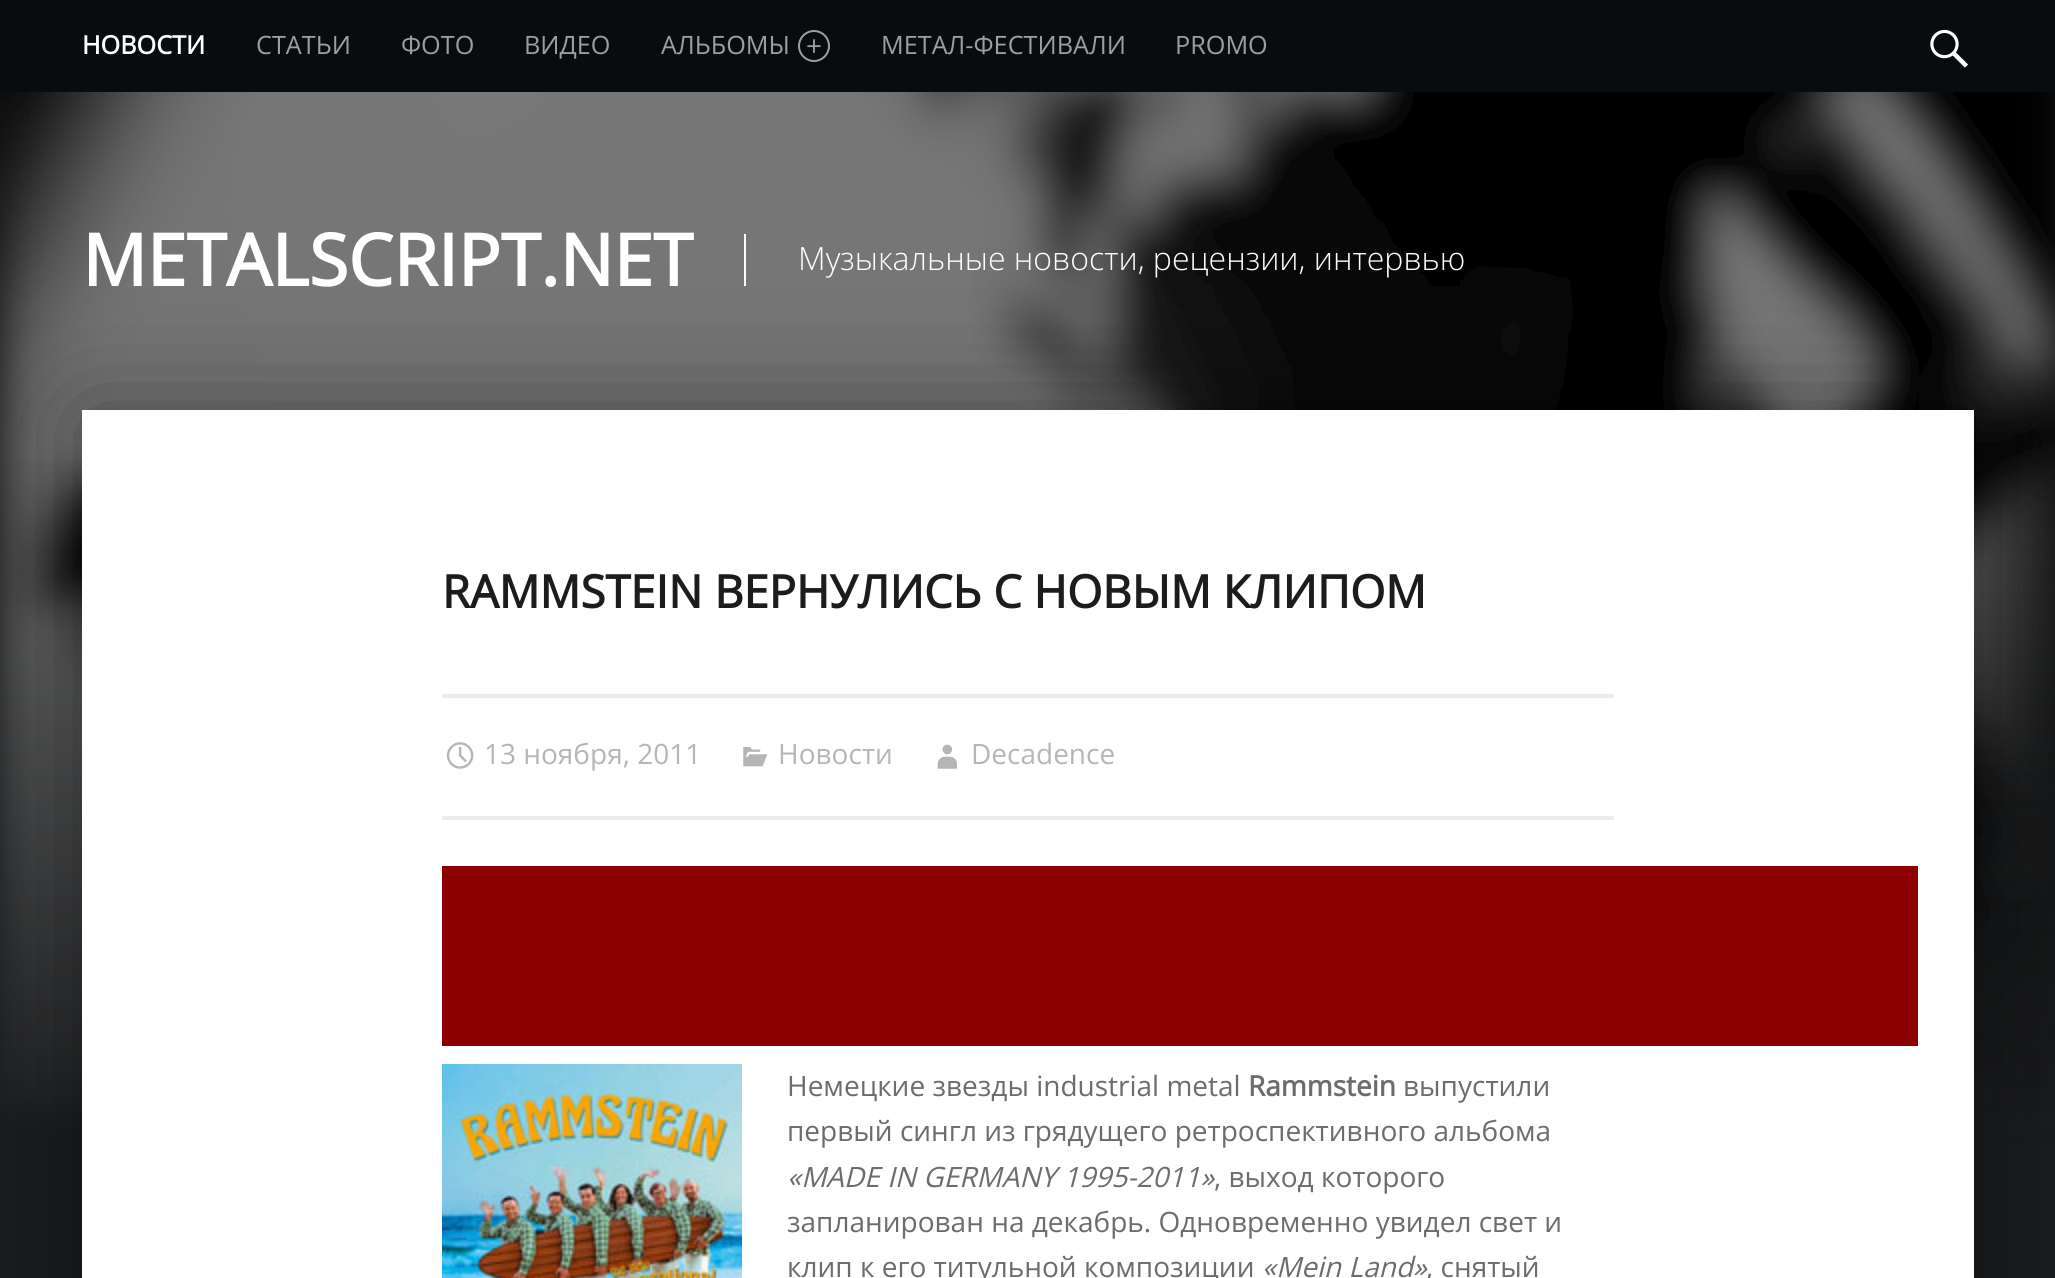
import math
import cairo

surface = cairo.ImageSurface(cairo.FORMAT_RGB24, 2055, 1278)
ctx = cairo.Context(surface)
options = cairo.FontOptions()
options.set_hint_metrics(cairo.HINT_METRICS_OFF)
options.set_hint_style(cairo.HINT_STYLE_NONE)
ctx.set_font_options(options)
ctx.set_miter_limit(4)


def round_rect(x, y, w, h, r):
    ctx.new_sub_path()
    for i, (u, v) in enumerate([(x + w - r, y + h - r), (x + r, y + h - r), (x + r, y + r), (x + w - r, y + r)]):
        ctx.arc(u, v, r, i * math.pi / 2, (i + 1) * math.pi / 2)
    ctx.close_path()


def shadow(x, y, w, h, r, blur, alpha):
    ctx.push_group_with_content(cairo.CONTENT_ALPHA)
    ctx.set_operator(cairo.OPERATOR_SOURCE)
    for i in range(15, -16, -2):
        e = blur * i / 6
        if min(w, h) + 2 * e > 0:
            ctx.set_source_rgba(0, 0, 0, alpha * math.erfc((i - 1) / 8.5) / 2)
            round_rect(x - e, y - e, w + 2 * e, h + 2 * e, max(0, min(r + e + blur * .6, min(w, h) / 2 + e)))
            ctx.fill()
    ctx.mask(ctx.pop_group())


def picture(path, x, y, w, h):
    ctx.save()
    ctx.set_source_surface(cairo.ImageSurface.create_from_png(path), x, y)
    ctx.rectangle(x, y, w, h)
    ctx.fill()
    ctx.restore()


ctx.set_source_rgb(0.102, 0.11, 0.118)
ctx.paint()
ctx.set_source_rgb(0.063, 0.067, 0.071)
ctx.rectangle(0, 92, 2055, 1060)
ctx.fill()
ctx.set_source_rgb(0.039, 0.047, 0.055)
ctx.rectangle(0, 0, 2055, 92)
ctx.fill()
ctx.select_font_face("Open Sans", cairo.FONT_SLANT_NORMAL, cairo.FONT_WEIGHT_BOLD)
ctx.set_font_size(25.25)
ctx.set_source_rgb(1, 1, 1)
ctx.move_to(82, 54)
ctx.show_text("НОВОСТИ")
ctx.select_font_face("Open Sans")
ctx.set_source_rgb(0.616, 0.62, 0.624)
ctx.move_to(256, 54)
ctx.show_text("СТАТЬИ")
ctx.move_to(401, 54)
ctx.show_text("ФОТО")
ctx.move_to(524, 54)
ctx.show_text("ВИДЕО")
ctx.move_to(661, 54)
ctx.show_text("АЛЬБОМЫ")
ctx.new_path()
ctx.arc(814, 46, 15, 0, 2 * math.pi)
ctx.stroke()
ctx.set_font_size(28)
ctx.move_to(806, 56)
ctx.show_text("+")
ctx.set_font_size(25.25)
ctx.move_to(881, 54)
ctx.show_text("МЕТАЛ-ФЕСТИВАЛИ")
ctx.move_to(1175, 54)
ctx.show_text("PROMO")
picture("img1.png", 1930, 29, 38, 39)
picture("img2.png", 0, 92, 2055, 1060)
gradient = cairo.LinearGradient(1028, 440, 1028, 1156)
gradient.add_color_stop_rgba(0, 0.102, 0.11, 0.118, 0)
gradient.add_color_stop_rgba(1, 0.102, 0.11, 0.118, 1)
ctx.set_source(gradient)
ctx.rectangle(0, 461, 2055, 691)
ctx.fill()
ctx.select_font_face("Open Sans", cairo.FONT_SLANT_NORMAL, cairo.FONT_WEIGHT_BOLD)
ctx.set_font_size(71.75)
ctx.set_source_rgb(1, 1, 1)
ctx.move_to(82, 286)
ctx.show_text("METALSCRIPT.NET")
ctx.rectangle(744, 234, 2, 52)
ctx.fill()
ctx.select_font_face("Open Sans Light")
ctx.set_font_size(32)
ctx.move_to(798, 270)
ctx.show_text("Музыкальные новости, рецензии, интервью")
ctx.set_source_rgb(0, 0, 0)
shadow(82, 410, 1892, 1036, 0, 56, 0.4)
ctx.set_source_rgb(1, 1, 1)
ctx.rectangle(82, 410, 1892, 868)
ctx.fill()
ctx.select_font_face("Open Sans", cairo.FONT_SLANT_NORMAL, cairo.FONT_WEIGHT_BOLD)
ctx.set_font_size(45.4)
ctx.set_source_rgb(0.102, 0.11, 0.118)
ctx.move_to(442, 608)
ctx.show_text("RAMMSTEIN ВЕРНУЛИСЬ С НОВЫМ КЛИПОМ")
ctx.set_source_rgb(0.918, 0.925, 0.933)
ctx.rectangle(442, 694, 1172, 4)
ctx.fill()
ctx.rectangle(442, 816, 1172, 4)
ctx.fill()
picture("img3.png", 446, 742, 28, 27)
ctx.select_font_face("Open Sans")
ctx.set_font_size(28)
ctx.set_source_rgb(0.71, 0.714, 0.718)
ctx.move_to(484, 764)
ctx.show_text("13 ноября, 2011")
picture("img4.png", 743, 747, 25, 20)
ctx.move_to(778, 764)
ctx.show_text("Новости")
picture("img5.png", 937, 744, 20, 25)
ctx.move_to(971, 764)
ctx.show_text("Decadence")
ctx.set_source_rgb(0.549, 0, 0)
ctx.rectangle(442, 866, 10, 180)
ctx.fill()
ctx.rectangle(452, 866, 1466, 180)
ctx.fill()
picture("img6.png", 442, 1064, 300, 214)
ctx.set_source_rgb(0.416, 0.424, 0.431)
ctx.move_to(787, 1096)
ctx.show_text("Немецкие звезды industrial metal")
ctx.select_font_face("Open Sans", cairo.FONT_SLANT_NORMAL, cairo.FONT_WEIGHT_BOLD)
ctx.move_to(1248, 1096)
ctx.show_text("Rammstein")
ctx.select_font_face("Open Sans")
ctx.move_to(1403, 1096)
ctx.show_text("выпустили")
ctx.move_to(787, 1141)
ctx.show_text("первый сингл из грядущего ретроспективного альбома")
ctx.select_font_face("Open Sans", cairo.FONT_SLANT_ITALIC)
ctx.move_to(787, 1187)
ctx.show_text("«MADE IN GERMANY 1995-2011»")
ctx.select_font_face("Open Sans")
ctx.move_to(1214, 1187)
ctx.show_text(", выход которого")
ctx.move_to(787, 1232)
ctx.show_text("запланирован на декабрь. Одновременно увидел свет и")
ctx.move_to(787, 1277)
ctx.show_text("клип к его титульной композиции")
ctx.select_font_face("Open Sans", cairo.FONT_SLANT_ITALIC)
ctx.move_to(1262, 1277)
ctx.show_text("«Mein Land»")
ctx.select_font_face("Open Sans")
ctx.move_to(1426, 1277)
ctx.show_text(", снятый")
surface.write_to_png("page.png")
